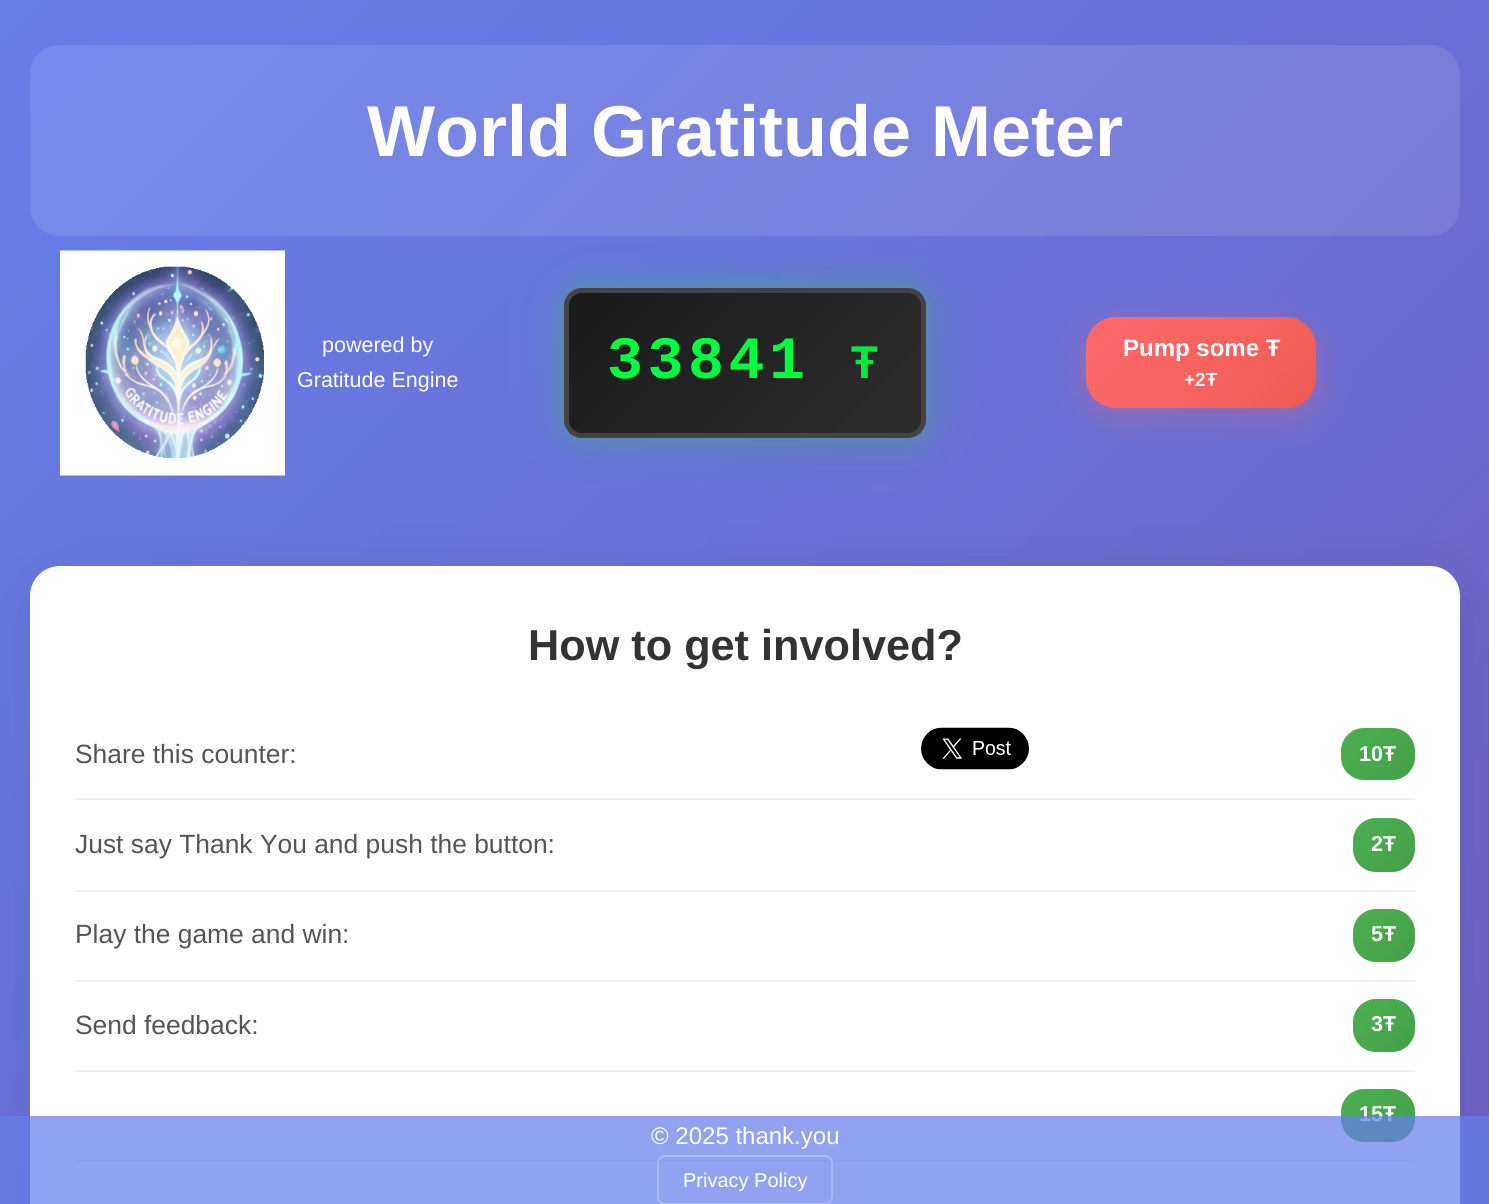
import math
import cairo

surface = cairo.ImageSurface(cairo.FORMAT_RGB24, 1489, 1204)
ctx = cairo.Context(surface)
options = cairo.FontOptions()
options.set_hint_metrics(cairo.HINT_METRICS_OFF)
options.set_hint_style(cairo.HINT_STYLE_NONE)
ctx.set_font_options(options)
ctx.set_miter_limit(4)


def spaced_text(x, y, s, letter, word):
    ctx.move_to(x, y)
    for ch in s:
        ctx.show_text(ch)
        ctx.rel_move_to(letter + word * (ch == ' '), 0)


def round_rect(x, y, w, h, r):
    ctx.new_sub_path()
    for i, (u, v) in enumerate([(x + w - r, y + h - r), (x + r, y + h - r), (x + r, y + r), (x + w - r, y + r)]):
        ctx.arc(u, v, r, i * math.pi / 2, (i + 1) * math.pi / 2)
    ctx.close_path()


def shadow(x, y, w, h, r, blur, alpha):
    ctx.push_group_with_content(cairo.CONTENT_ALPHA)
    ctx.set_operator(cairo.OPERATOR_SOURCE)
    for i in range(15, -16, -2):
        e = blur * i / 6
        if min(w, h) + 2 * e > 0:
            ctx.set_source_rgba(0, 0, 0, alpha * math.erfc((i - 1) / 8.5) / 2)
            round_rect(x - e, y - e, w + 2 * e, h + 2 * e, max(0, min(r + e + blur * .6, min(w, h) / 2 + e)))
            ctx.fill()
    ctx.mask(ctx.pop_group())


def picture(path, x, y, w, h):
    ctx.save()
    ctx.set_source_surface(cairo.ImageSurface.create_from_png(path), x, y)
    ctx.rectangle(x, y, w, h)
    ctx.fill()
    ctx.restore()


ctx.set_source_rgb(1, 1, 1)
ctx.paint()
gradient = cairo.LinearGradient(-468, 468, 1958, 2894)
gradient.add_color_stop_rgba(0, 0.4, 0.494, 0.918, 1)
gradient.add_color_stop_rgba(1, 0.463, 0.294, 0.635, 1)
ctx.set_source(gradient)
ctx.rectangle(0, 0, 1489, 1204)
ctx.fill()
ctx.set_source_rgba(1, 1, 1, 0.1)
round_rect(30, 45, 1430, 191, 30)
ctx.fill()
ctx.select_font_face("Liberation Sans", cairo.FONT_SLANT_NORMAL, cairo.FONT_WEIGHT_BOLD)
ctx.set_font_size(72)
ctx.set_source_rgb(1, 1, 1)
ctx.move_to(367, 156)
ctx.show_text("World Gratitude Meter")
picture("img1.png", 60, 250, 225, 226)
ctx.select_font_face("Liberation Sans")
ctx.set_font_size(21.5)
ctx.move_to(322, 352)
ctx.show_text("powered by")
ctx.move_to(297, 387)
ctx.show_text("Gratitude Engine")
ctx.set_source_rgb(0, 1, 0)
shadow(564, 288, 362, 150, 18, 30, 0.1)
shadow(564, 288, 362, 150, 18, 15, 0.2)
ctx.save()
round_rect(564, 288, 362, 150, 18)
ctx.clip()
gradient = cairo.LinearGradient(621, 240, 868, 486)
gradient.add_color_stop_rgba(0, 0.102, 0.102, 0.102, 1)
gradient.add_color_stop_rgba(1, 0.176, 0.176, 0.176, 1)
ctx.set_source(gradient)
ctx.rectangle(569, 293, 352, 141)
ctx.fill()
ctx.restore()
round_rect(566.5, 290.5, 357, 145, 15.5)
ctx.set_source_rgb(0.267, 0.267, 0.267)
ctx.set_line_width(5)
ctx.stroke()
ctx.select_font_face("Liberation Mono", cairo.FONT_SLANT_NORMAL, cairo.FONT_WEIGHT_BOLD)
ctx.set_font_size(60)
ctx.set_source_rgb(0, 1, 0.255)
spaced_text(607, 378, "33841", 4.5, 0)
ctx.set_font_size(48)
ctx.set_source_rgb(0.016, 0.914, 0.243)
spaced_text(850, 378, "Ŧ", 4.5, 0)
ctx.set_source_rgb(1, 0.42, 0.42)
shadow(1086, 326, 230, 91, 30, 15, 0.3)
gradient = cairo.LinearGradient(1121, 282, 1281, 443)
gradient.add_color_stop_rgba(0, 1, 0.42, 0.42, 1)
gradient.add_color_stop_rgba(1, 0.933, 0.353, 0.322, 1)
ctx.set_source(gradient)
round_rect(1086, 317, 230, 91, 30)
ctx.fill()
ctx.select_font_face("Liberation Sans", cairo.FONT_SLANT_NORMAL, cairo.FONT_WEIGHT_BOLD)
ctx.set_font_size(24)
ctx.set_source_rgb(1, 1, 1)
ctx.move_to(1123, 356)
ctx.show_text("Pump some Ŧ")
ctx.set_font_size(19)
ctx.set_source_rgb(0.996, 0.937, 0.937)
ctx.move_to(1184, 386)
ctx.show_text("+2Ŧ")
ctx.set_source_rgb(0, 0, 0)
shadow(30, 581, 1430, 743, 30, 30, 0.1)
ctx.set_source_rgb(1, 1, 1)
round_rect(30, 566, 1430, 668, 30)
ctx.fill()
ctx.set_font_size(43.25)
ctx.set_source_rgb(0.2, 0.2, 0.2)
ctx.move_to(528, 660)
ctx.show_text("How to get involved?")
ctx.set_source_rgb(0.941, 0.941, 0.941)
ctx.rectangle(75, 798, 1340, 2)
ctx.fill()
ctx.select_font_face("Liberation Sans")
ctx.set_font_size(26.4)
ctx.set_source_rgb(0.333, 0.333, 0.333)
ctx.move_to(75, 763)
ctx.show_text("Share this counter:")
picture("img2.png", 921, 727, 108, 43)
gradient = cairo.LinearGradient(1346, 722, 1409, 785)
gradient.add_color_stop_rgba(0, 0.298, 0.686, 0.314, 1)
gradient.add_color_stop_rgba(1, 0.271, 0.627, 0.286, 1)
ctx.set_source(gradient)
round_rect(1341, 728, 74, 52, 23)
ctx.fill()
ctx.select_font_face("Liberation Sans", cairo.FONT_SLANT_NORMAL, cairo.FONT_WEIGHT_BOLD)
ctx.set_font_size(21.5)
ctx.set_source_rgb(1, 1, 1)
ctx.move_to(1359, 761)
ctx.show_text("10Ŧ")
ctx.set_source_rgb(0.941, 0.941, 0.941)
ctx.rectangle(75, 890, 1340, 2)
ctx.fill()
ctx.select_font_face("Liberation Sans")
ctx.set_font_size(26.4)
ctx.set_source_rgb(0.333, 0.333, 0.333)
ctx.move_to(75, 853)
ctx.show_text("Just say Thank You and push the button:")
gradient = cairo.LinearGradient(1355, 816, 1413, 873)
gradient.add_color_stop_rgba(0, 0.298, 0.686, 0.314, 1)
gradient.add_color_stop_rgba(1, 0.271, 0.627, 0.286, 1)
ctx.set_source(gradient)
round_rect(1353, 818, 62, 54, 23)
ctx.fill()
ctx.select_font_face("Liberation Sans", cairo.FONT_SLANT_NORMAL, cairo.FONT_WEIGHT_BOLD)
ctx.set_font_size(21.5)
ctx.set_source_rgb(1, 1, 1)
ctx.move_to(1371, 851)
ctx.show_text("2Ŧ")
ctx.set_source_rgb(0.941, 0.941, 0.941)
ctx.rectangle(75, 980, 1340, 2)
ctx.fill()
ctx.select_font_face("Liberation Sans")
ctx.set_font_size(26.4)
ctx.set_source_rgb(0.333, 0.333, 0.333)
ctx.move_to(75, 943)
ctx.show_text("Play the game and win:")
gradient = cairo.LinearGradient(1355, 907, 1412, 964)
gradient.add_color_stop_rgba(0, 0.298, 0.686, 0.314, 1)
gradient.add_color_stop_rgba(1, 0.271, 0.627, 0.286, 1)
ctx.set_source(gradient)
round_rect(1353, 909, 62, 53, 23)
ctx.fill()
ctx.select_font_face("Liberation Sans", cairo.FONT_SLANT_NORMAL, cairo.FONT_WEIGHT_BOLD)
ctx.set_font_size(21.5)
ctx.set_source_rgb(1, 1, 1)
ctx.move_to(1371, 941)
ctx.show_text("5Ŧ")
ctx.set_source_rgb(0.941, 0.941, 0.941)
ctx.rectangle(75, 1070, 1340, 2)
ctx.fill()
ctx.select_font_face("Liberation Sans")
ctx.set_font_size(26.4)
ctx.set_source_rgb(0.333, 0.333, 0.333)
ctx.move_to(75, 1034)
ctx.show_text("Send feedback:")
gradient = cairo.LinearGradient(1355, 997, 1412, 1054)
gradient.add_color_stop_rgba(0, 0.298, 0.686, 0.314, 1)
gradient.add_color_stop_rgba(1, 0.271, 0.627, 0.286, 1)
ctx.set_source(gradient)
round_rect(1353, 999, 62, 53, 23)
ctx.fill()
ctx.select_font_face("Liberation Sans", cairo.FONT_SLANT_NORMAL, cairo.FONT_WEIGHT_BOLD)
ctx.set_font_size(21.5)
ctx.set_source_rgb(1, 1, 1)
ctx.move_to(1371, 1031)
ctx.show_text("3Ŧ")
ctx.set_source_rgb(0.941, 0.941, 0.941)
ctx.rectangle(75, 1160, 1340, 2)
ctx.fill()
gradient = cairo.LinearGradient(1346, 1084, 1409, 1147)
gradient.add_color_stop_rgba(0, 0.298, 0.686, 0.314, 1)
gradient.add_color_stop_rgba(1, 0.271, 0.627, 0.286, 1)
ctx.set_source(gradient)
round_rect(1341, 1089, 74, 53, 23)
ctx.fill()
ctx.set_source_rgb(1, 1, 1)
ctx.move_to(1359, 1121)
ctx.show_text("15Ŧ")
ctx.set_source_rgba(0.4, 0.494, 0.918, 0.72)
ctx.rectangle(0, 1116, 1489, 88)
ctx.fill()
ctx.select_font_face("Liberation Sans")
ctx.set_font_size(24)
ctx.set_source_rgb(1, 1, 1)
ctx.move_to(651, 1144)
ctx.show_text("© 2025 thank.you")
round_rect(658, 1156, 174, 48, 7)
ctx.set_source_rgba(1, 1, 1, 0.24)
ctx.set_line_width(2)
ctx.stroke()
ctx.set_font_size(20)
ctx.set_source_rgb(1, 1, 1)
ctx.move_to(683, 1187)
ctx.show_text("Privacy Policy")
surface.write_to_png("page.png")
